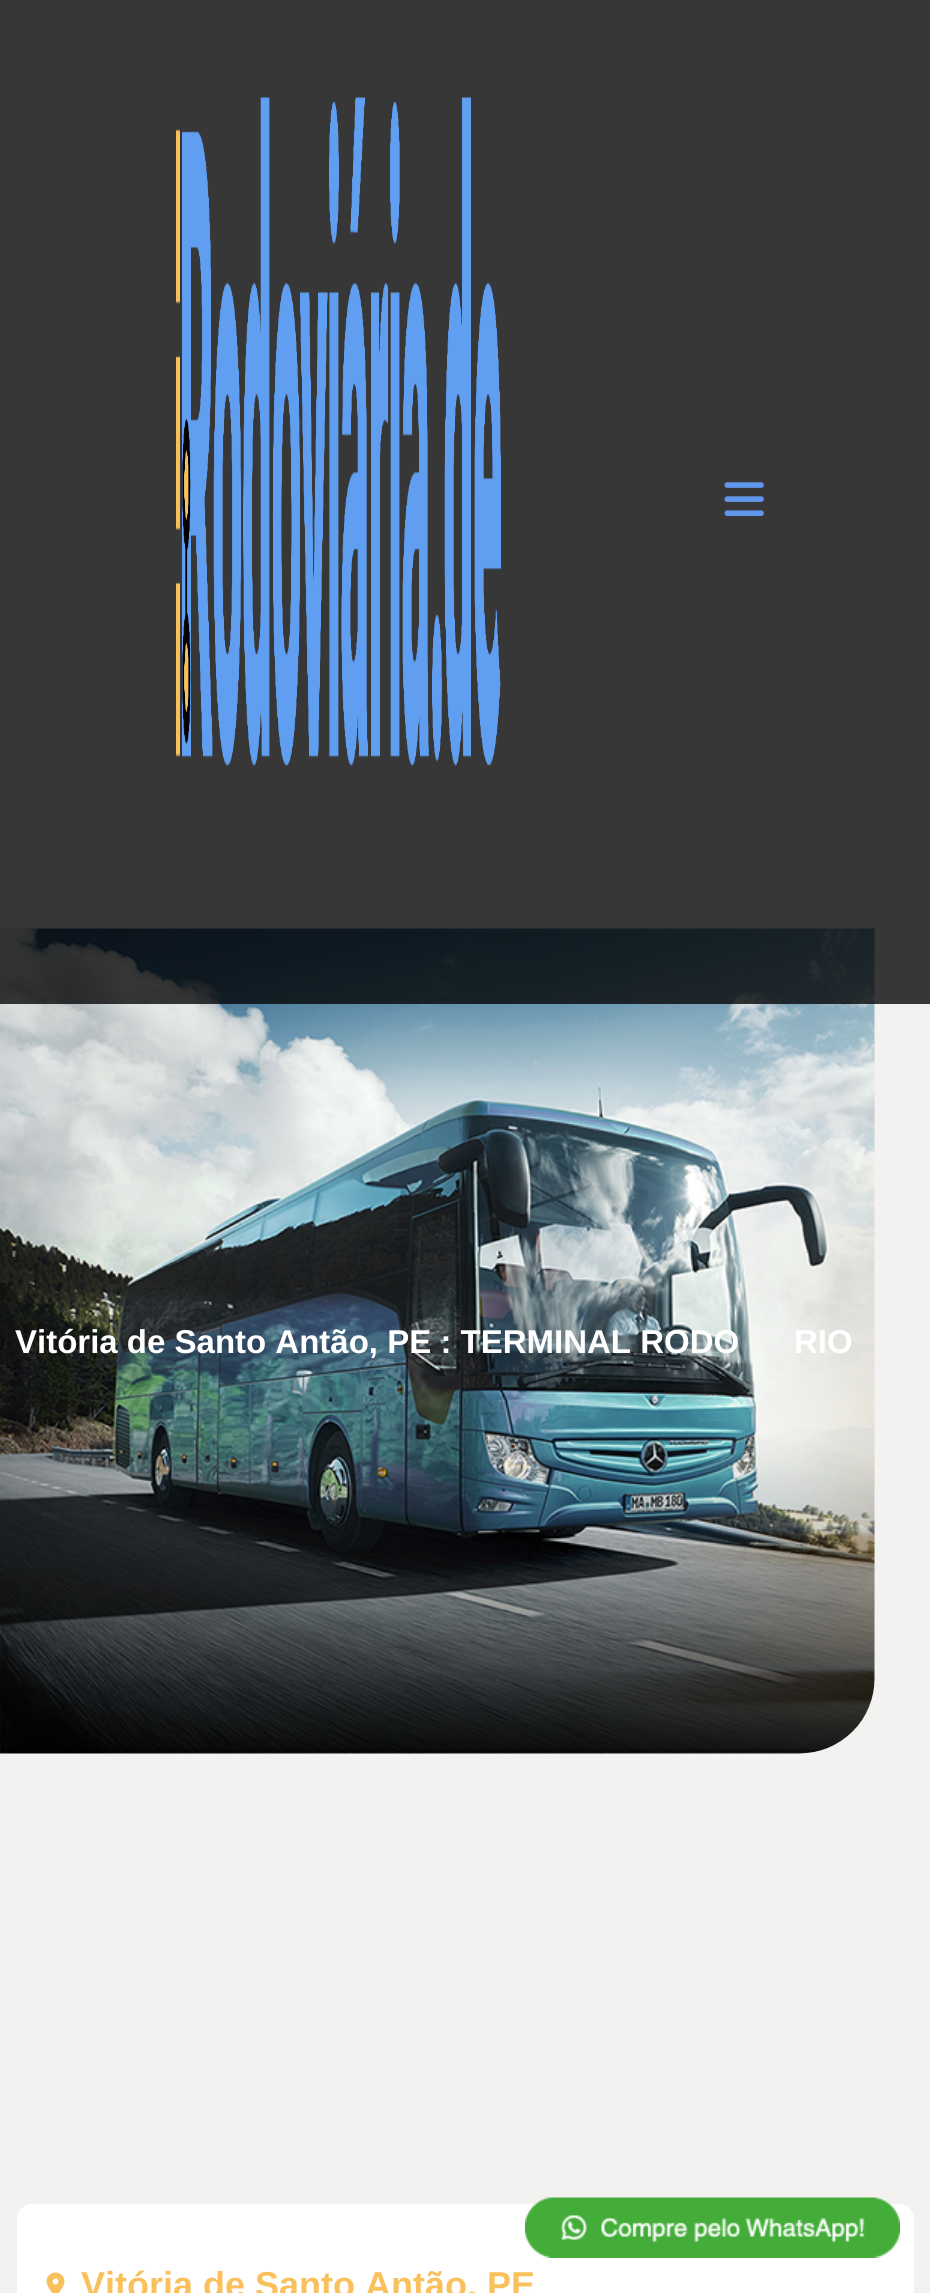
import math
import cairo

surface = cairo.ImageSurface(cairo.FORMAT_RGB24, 930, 2293)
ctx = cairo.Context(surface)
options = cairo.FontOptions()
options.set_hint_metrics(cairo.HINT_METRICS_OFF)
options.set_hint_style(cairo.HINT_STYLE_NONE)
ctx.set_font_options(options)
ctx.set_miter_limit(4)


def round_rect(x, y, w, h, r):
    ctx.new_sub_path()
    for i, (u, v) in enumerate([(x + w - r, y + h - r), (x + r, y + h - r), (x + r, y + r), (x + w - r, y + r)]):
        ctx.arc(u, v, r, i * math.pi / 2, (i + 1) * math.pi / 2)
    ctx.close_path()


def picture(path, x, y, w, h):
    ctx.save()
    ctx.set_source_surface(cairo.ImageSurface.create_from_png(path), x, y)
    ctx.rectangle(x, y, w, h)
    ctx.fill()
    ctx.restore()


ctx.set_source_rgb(0.957, 0.949, 0.941)
ctx.paint()
picture("img3.png", 0, 928, 875, 826)
ctx.set_source_rgba(0, 0, 0, 0.77)
ctx.rectangle(0, 0, 930, 1004)
ctx.fill()
picture("img1.png", 176, 97, 325, 669)
picture("img2.png", 724, 482, 40, 34)
ctx.select_font_face("Liberation Sans", cairo.FONT_SLANT_NORMAL, cairo.FONT_WEIGHT_BOLD)
ctx.set_font_size(33)
ctx.set_source_rgb(1, 1, 1)
ctx.move_to(15, 1353)
ctx.show_text("Vitória de Santo Antão, PE : TERMINAL RODO")
ctx.move_to(794, 1353)
ctx.show_text("RIO")
round_rect(17, 2204, 897, 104, 15)
ctx.fill()
picture("img4.png", 46, 2272, 19, 21)
ctx.set_font_size(36)
ctx.set_source_rgb(0.973, 0.753, 0.357)
ctx.move_to(81, 2297)
ctx.show_text("Vitória de Santo Antão, PE")
picture("img5.png", 525, 2197, 375, 61)
surface.write_to_png("page.png")
